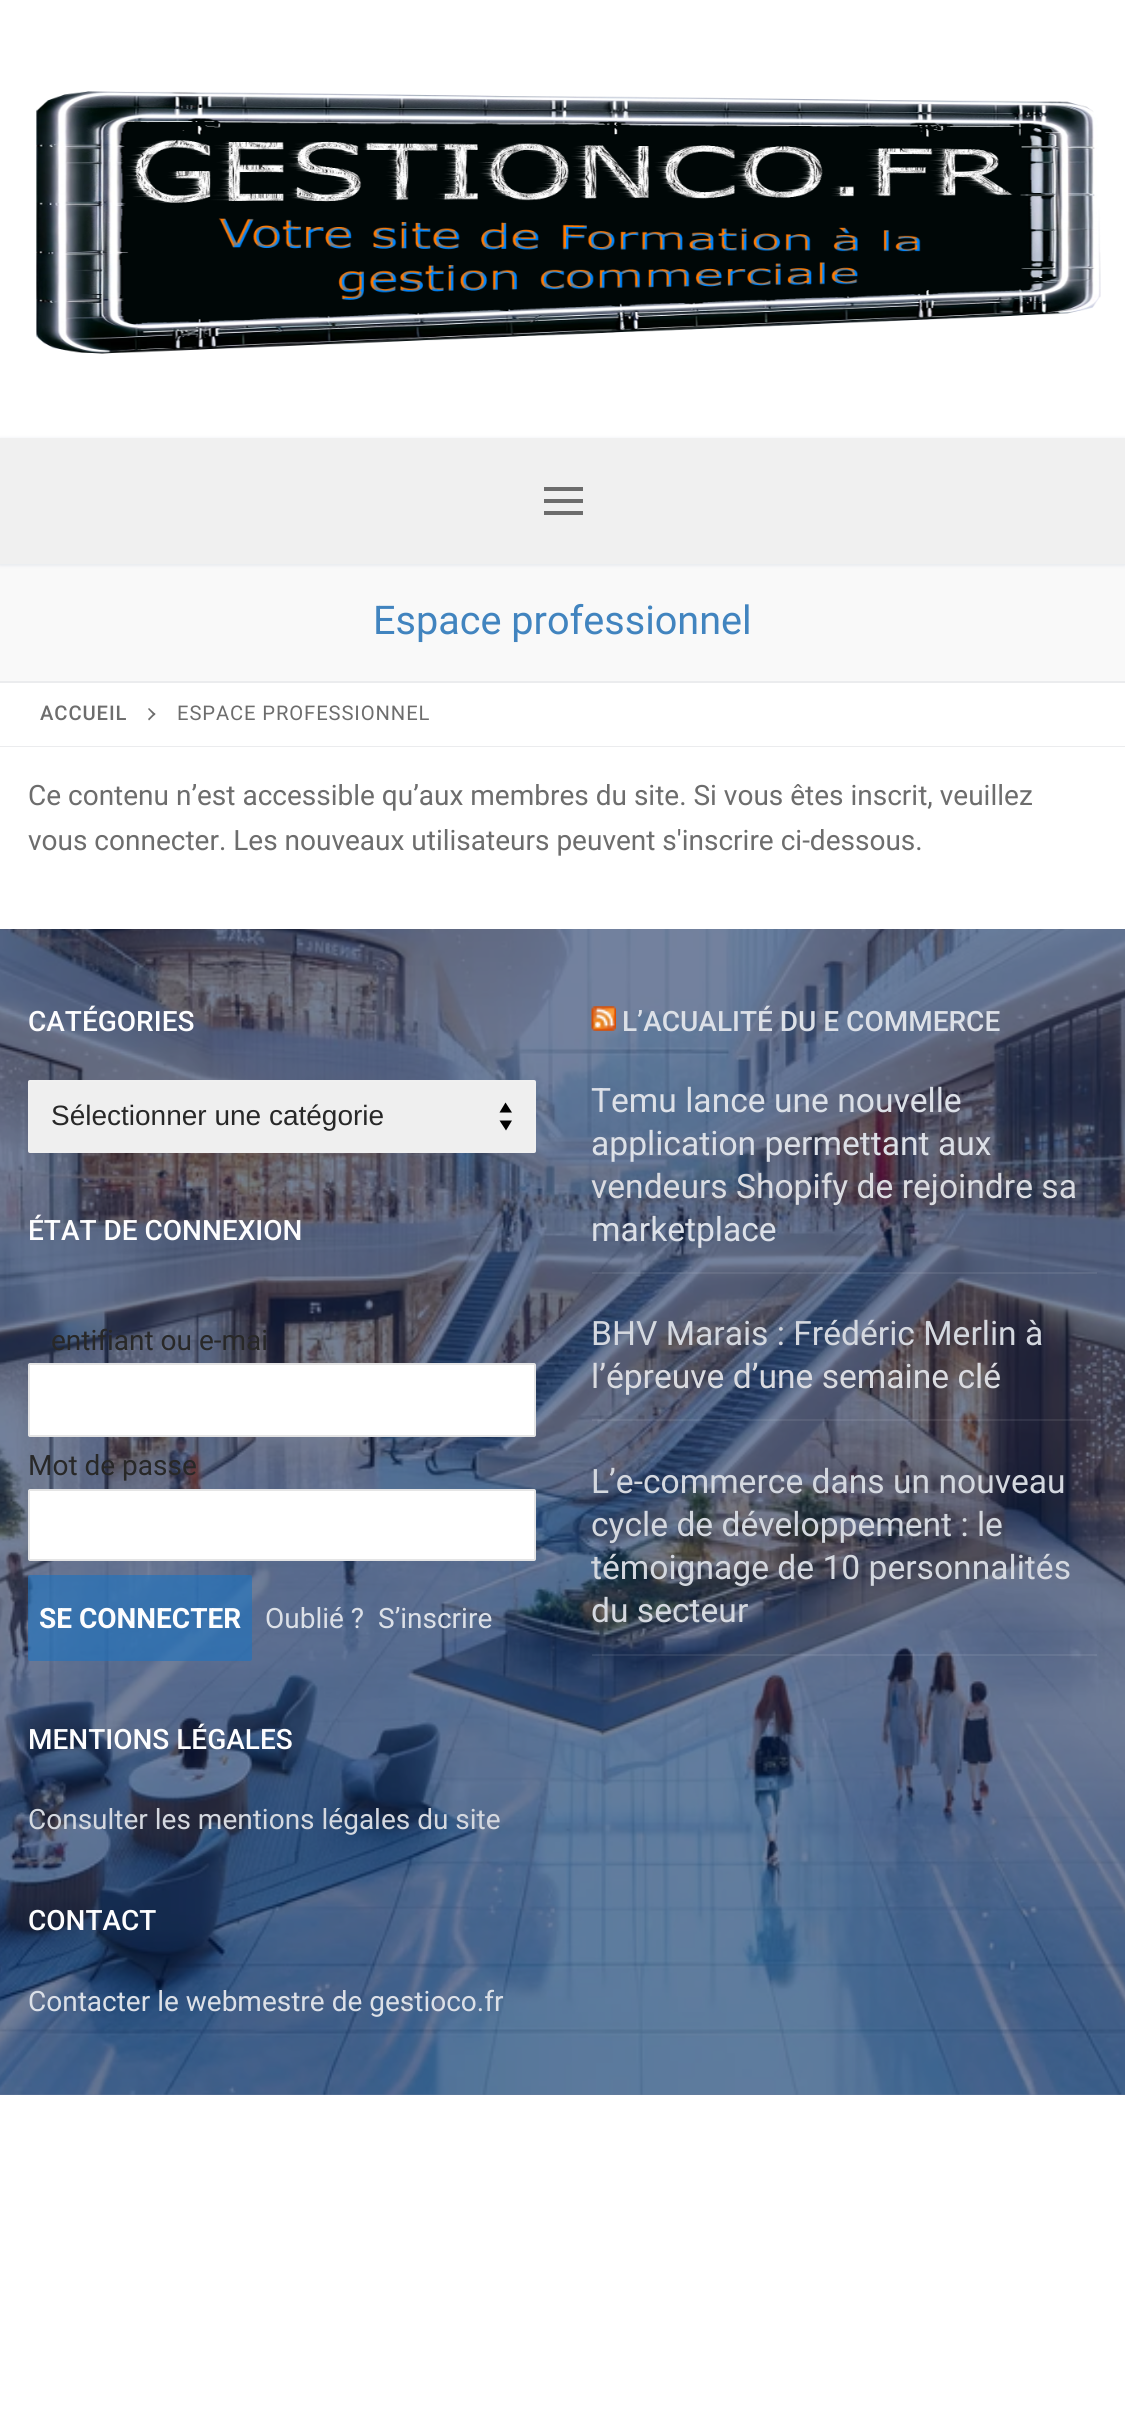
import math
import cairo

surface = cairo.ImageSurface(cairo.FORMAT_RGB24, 1125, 2425)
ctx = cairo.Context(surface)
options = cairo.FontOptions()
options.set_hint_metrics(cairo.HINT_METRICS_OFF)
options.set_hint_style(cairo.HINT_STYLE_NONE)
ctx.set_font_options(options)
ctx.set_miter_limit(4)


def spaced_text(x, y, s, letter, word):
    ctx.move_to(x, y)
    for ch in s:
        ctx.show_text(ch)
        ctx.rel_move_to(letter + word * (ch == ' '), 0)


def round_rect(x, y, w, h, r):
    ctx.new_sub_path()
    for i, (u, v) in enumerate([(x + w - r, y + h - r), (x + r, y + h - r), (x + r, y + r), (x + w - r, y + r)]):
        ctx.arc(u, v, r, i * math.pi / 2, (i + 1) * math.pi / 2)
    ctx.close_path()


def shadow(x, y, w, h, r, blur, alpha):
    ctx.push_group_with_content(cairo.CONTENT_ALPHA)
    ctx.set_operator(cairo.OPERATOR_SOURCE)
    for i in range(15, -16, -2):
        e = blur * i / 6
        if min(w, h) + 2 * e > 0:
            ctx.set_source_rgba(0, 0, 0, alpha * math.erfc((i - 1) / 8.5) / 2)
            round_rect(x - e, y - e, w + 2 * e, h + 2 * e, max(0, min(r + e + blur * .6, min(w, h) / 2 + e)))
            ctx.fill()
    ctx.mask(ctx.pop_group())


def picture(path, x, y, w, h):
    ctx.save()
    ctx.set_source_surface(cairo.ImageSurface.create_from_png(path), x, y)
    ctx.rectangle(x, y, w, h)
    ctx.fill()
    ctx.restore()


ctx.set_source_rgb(1, 1, 1)
ctx.paint()
picture("img1.png", 0, 929, 1125, 1166)
picture("img2.png", 36, 91, 1065, 263)
ctx.set_source_rgb(0.976, 0.976, 0.976)
ctx.rectangle(0, 564, 1125, 117)
ctx.fill()
ctx.set_source_rgb(0.882, 0.898, 0.918)
shadow(0, 439, 1125, 126, 0, 2, 1)
ctx.set_source_rgb(0.941, 0.941, 0.941)
ctx.rectangle(0, 438, 1125, 126)
ctx.fill()
ctx.set_source_rgb(0.424, 0.424, 0.424)
ctx.rectangle(544, 499, 39, 4)
ctx.fill()
ctx.rectangle(544, 487, 39, 4)
ctx.fill()
ctx.rectangle(544, 511, 39, 4)
ctx.fill()
ctx.set_source_rgb(0.918, 0.925, 0.933)
ctx.rectangle(0, 681, 1125, 2)
ctx.fill()
ctx.select_font_face("Roboto")
ctx.set_font_size(39.6)
ctx.set_source_rgb(0.255, 0.518, 0.749)
ctx.move_to(373, 634)
ctx.show_text("Espace professionnel")
ctx.set_source_rgb(0.918, 0.925, 0.933)
ctx.rectangle(0, 746, 1125, 1)
ctx.fill()
ctx.select_font_face("Roboto Medium")
ctx.set_font_size(20.2)
ctx.set_source_rgb(0.427, 0.427, 0.427)
spaced_text(40, 720, "ACCUEIL", 0.9, 0)
ctx.new_path()
ctx.move_to(155.5, 714)
ctx.line_to(149, 720.5)
ctx.line_to(148, 719)
ctx.line_to(154, 713)
ctx.close_path()
ctx.fill()
ctx.new_path()
ctx.move_to(155.5, 714)
ctx.line_to(154, 715.5)
ctx.line_to(148, 709)
ctx.line_to(149, 708)
ctx.close_path()
ctx.fill()
ctx.select_font_face("Roboto")
spaced_text(177, 720, "ESPACE PROFESSIONNEL", 0.9, 0)
ctx.set_font_size(28)
ctx.move_to(28, 805)
ctx.show_text("Ce contenu n’est accessible qu’aux membres du site. Si vous êtes inscrit, veuillez")
ctx.move_to(28, 850)
ctx.show_text("vous connecter. Les nouveaux utilisateurs peuvent s'inscrire ci-dessous.")
ctx.set_source_rgba(0, 0.102, 0.31, 0.55)
ctx.rectangle(0, 929, 1125, 1166)
ctx.fill()
ctx.select_font_face("Roboto Medium")
ctx.set_source_rgb(0.992, 0.992, 0.996)
ctx.move_to(28, 1031)
ctx.show_text("CATÉGORIES")
ctx.set_source_rgb(0.937, 0.937, 0.937)
round_rect(28, 1080, 508, 73, 2)
ctx.fill()
ctx.set_source_rgb(0, 0, 0)
ctx.new_path()
ctx.move_to(505.5, 1102.5)
ctx.line_to(499.5, 1112.5)
ctx.line_to(512, 1112.5)
ctx.close_path()
ctx.move_to(506, 1130.5)
ctx.line_to(512, 1120.5)
ctx.line_to(499.5, 1120.5)
ctx.close_path()
ctx.fill()
ctx.rectangle(29, 1081, 506, 71)
ctx.set_source_rgba(1, 1, 1, 0.08)
ctx.stroke()
ctx.select_font_face("Liberation Sans")
ctx.set_source_rgb(0.157, 0.157, 0.157)
ctx.move_to(51, 1125)
ctx.show_text("Sélectionner une catégorie")
ctx.select_font_face("Roboto Medium")
ctx.set_source_rgb(0.992, 0.992, 0.996)
ctx.move_to(28, 1240)
ctx.show_text("ÉTAT DE CONNEXION")
ctx.select_font_face("Roboto")
ctx.set_source_rgb(0.157, 0.157, 0.157)
ctx.move_to(51, 1350)
ctx.show_text("entifiant ou e-mai")
ctx.set_source_rgb(1, 1, 1)
round_rect(29, 1364, 506, 72, 1)
ctx.fill_preserve()
ctx.set_source_rgb(0.898, 0.898, 0.898)
ctx.stroke()
ctx.set_source_rgb(0.157, 0.157, 0.157)
ctx.move_to(28, 1475)
ctx.show_text("Mot de passe")
ctx.set_source_rgb(1, 1, 1)
round_rect(29, 1490, 506, 70, 1)
ctx.fill_preserve()
ctx.set_source_rgb(0.898, 0.898, 0.898)
ctx.stroke()
ctx.set_source_rgba(0.118, 0.451, 0.745, 0.63)
round_rect(28, 1575, 224, 86, 2)
ctx.fill()
ctx.select_font_face("Roboto", cairo.FONT_SLANT_NORMAL, cairo.FONT_WEIGHT_BOLD)
ctx.set_source_rgb(0.992, 0.992, 0.996)
ctx.move_to(39, 1628)
ctx.show_text("SE CONNECTER")
ctx.select_font_face("Roboto")
ctx.set_source_rgb(0.863, 0.878, 0.906)
ctx.move_to(265, 1628)
ctx.show_text("Oublié ?")
ctx.move_to(378, 1628)
ctx.show_text("S’inscrire")
picture("img3.png", 591, 1006, 25, 25)
ctx.select_font_face("Roboto Medium")
ctx.move_to(622, 1031)
ctx.show_text("L’ACUALITÉ DU E COMMERCE")
ctx.set_source_rgba(1, 1, 1, 0.08)
ctx.rectangle(592, 1272, 505, 2)
ctx.fill()
ctx.select_font_face("Roboto")
ctx.set_font_size(33.6)
ctx.set_source_rgb(0.863, 0.878, 0.906)
ctx.move_to(591, 1112)
ctx.show_text("Temu lance une nouvelle")
ctx.move_to(591, 1155)
ctx.show_text("application permettant aux")
ctx.set_source_rgb(0.855, 0.859, 0.878)
ctx.move_to(591, 1198)
ctx.show_text("vendeurs Shopify de rejoindre sa")
ctx.set_source_rgb(0.863, 0.878, 0.906)
ctx.move_to(591, 1241)
ctx.show_text("marketplace")
ctx.set_source_rgba(1, 1, 1, 0.08)
ctx.rectangle(592, 1419, 505, 2)
ctx.fill()
ctx.set_source_rgb(0.831, 0.847, 0.875)
ctx.move_to(591, 1345)
ctx.show_text("BHV Marais : Frédéric Merlin à")
ctx.set_source_rgb(0.855, 0.859, 0.878)
ctx.move_to(591, 1388)
ctx.show_text("l’épreuve d’une semaine clé")
ctx.set_source_rgba(1, 1, 1, 0.08)
ctx.rectangle(592, 1654, 505, 2)
ctx.fill()
ctx.set_source_rgb(0.831, 0.847, 0.875)
ctx.move_to(591, 1493)
ctx.show_text("L’e-commerce dans un nouveau")
ctx.move_to(591, 1536)
ctx.show_text("cycle de développement : le")
ctx.move_to(591, 1579)
ctx.show_text("témoignage de 10 personnalités")
ctx.move_to(591, 1622)
ctx.show_text("du secteur")
ctx.select_font_face("Roboto Medium")
ctx.set_font_size(28)
ctx.set_source_rgb(0.992, 0.992, 0.996)
ctx.move_to(28, 1749)
ctx.show_text("MENTIONS LÉGALES")
ctx.select_font_face("Roboto")
ctx.set_source_rgb(0.831, 0.847, 0.875)
ctx.move_to(28, 1829)
ctx.show_text("Consulter les mentions légales du site")
ctx.select_font_face("Roboto Medium")
ctx.set_source_rgb(0.992, 0.992, 0.996)
ctx.move_to(28, 1930)
ctx.show_text("CONTACT")
ctx.select_font_face("Roboto")
ctx.set_source_rgb(0.863, 0.878, 0.906)
ctx.move_to(28, 2011)
ctx.show_text("Contacter le webmestre de gestioco.fr")
surface.write_to_png("page.png")
